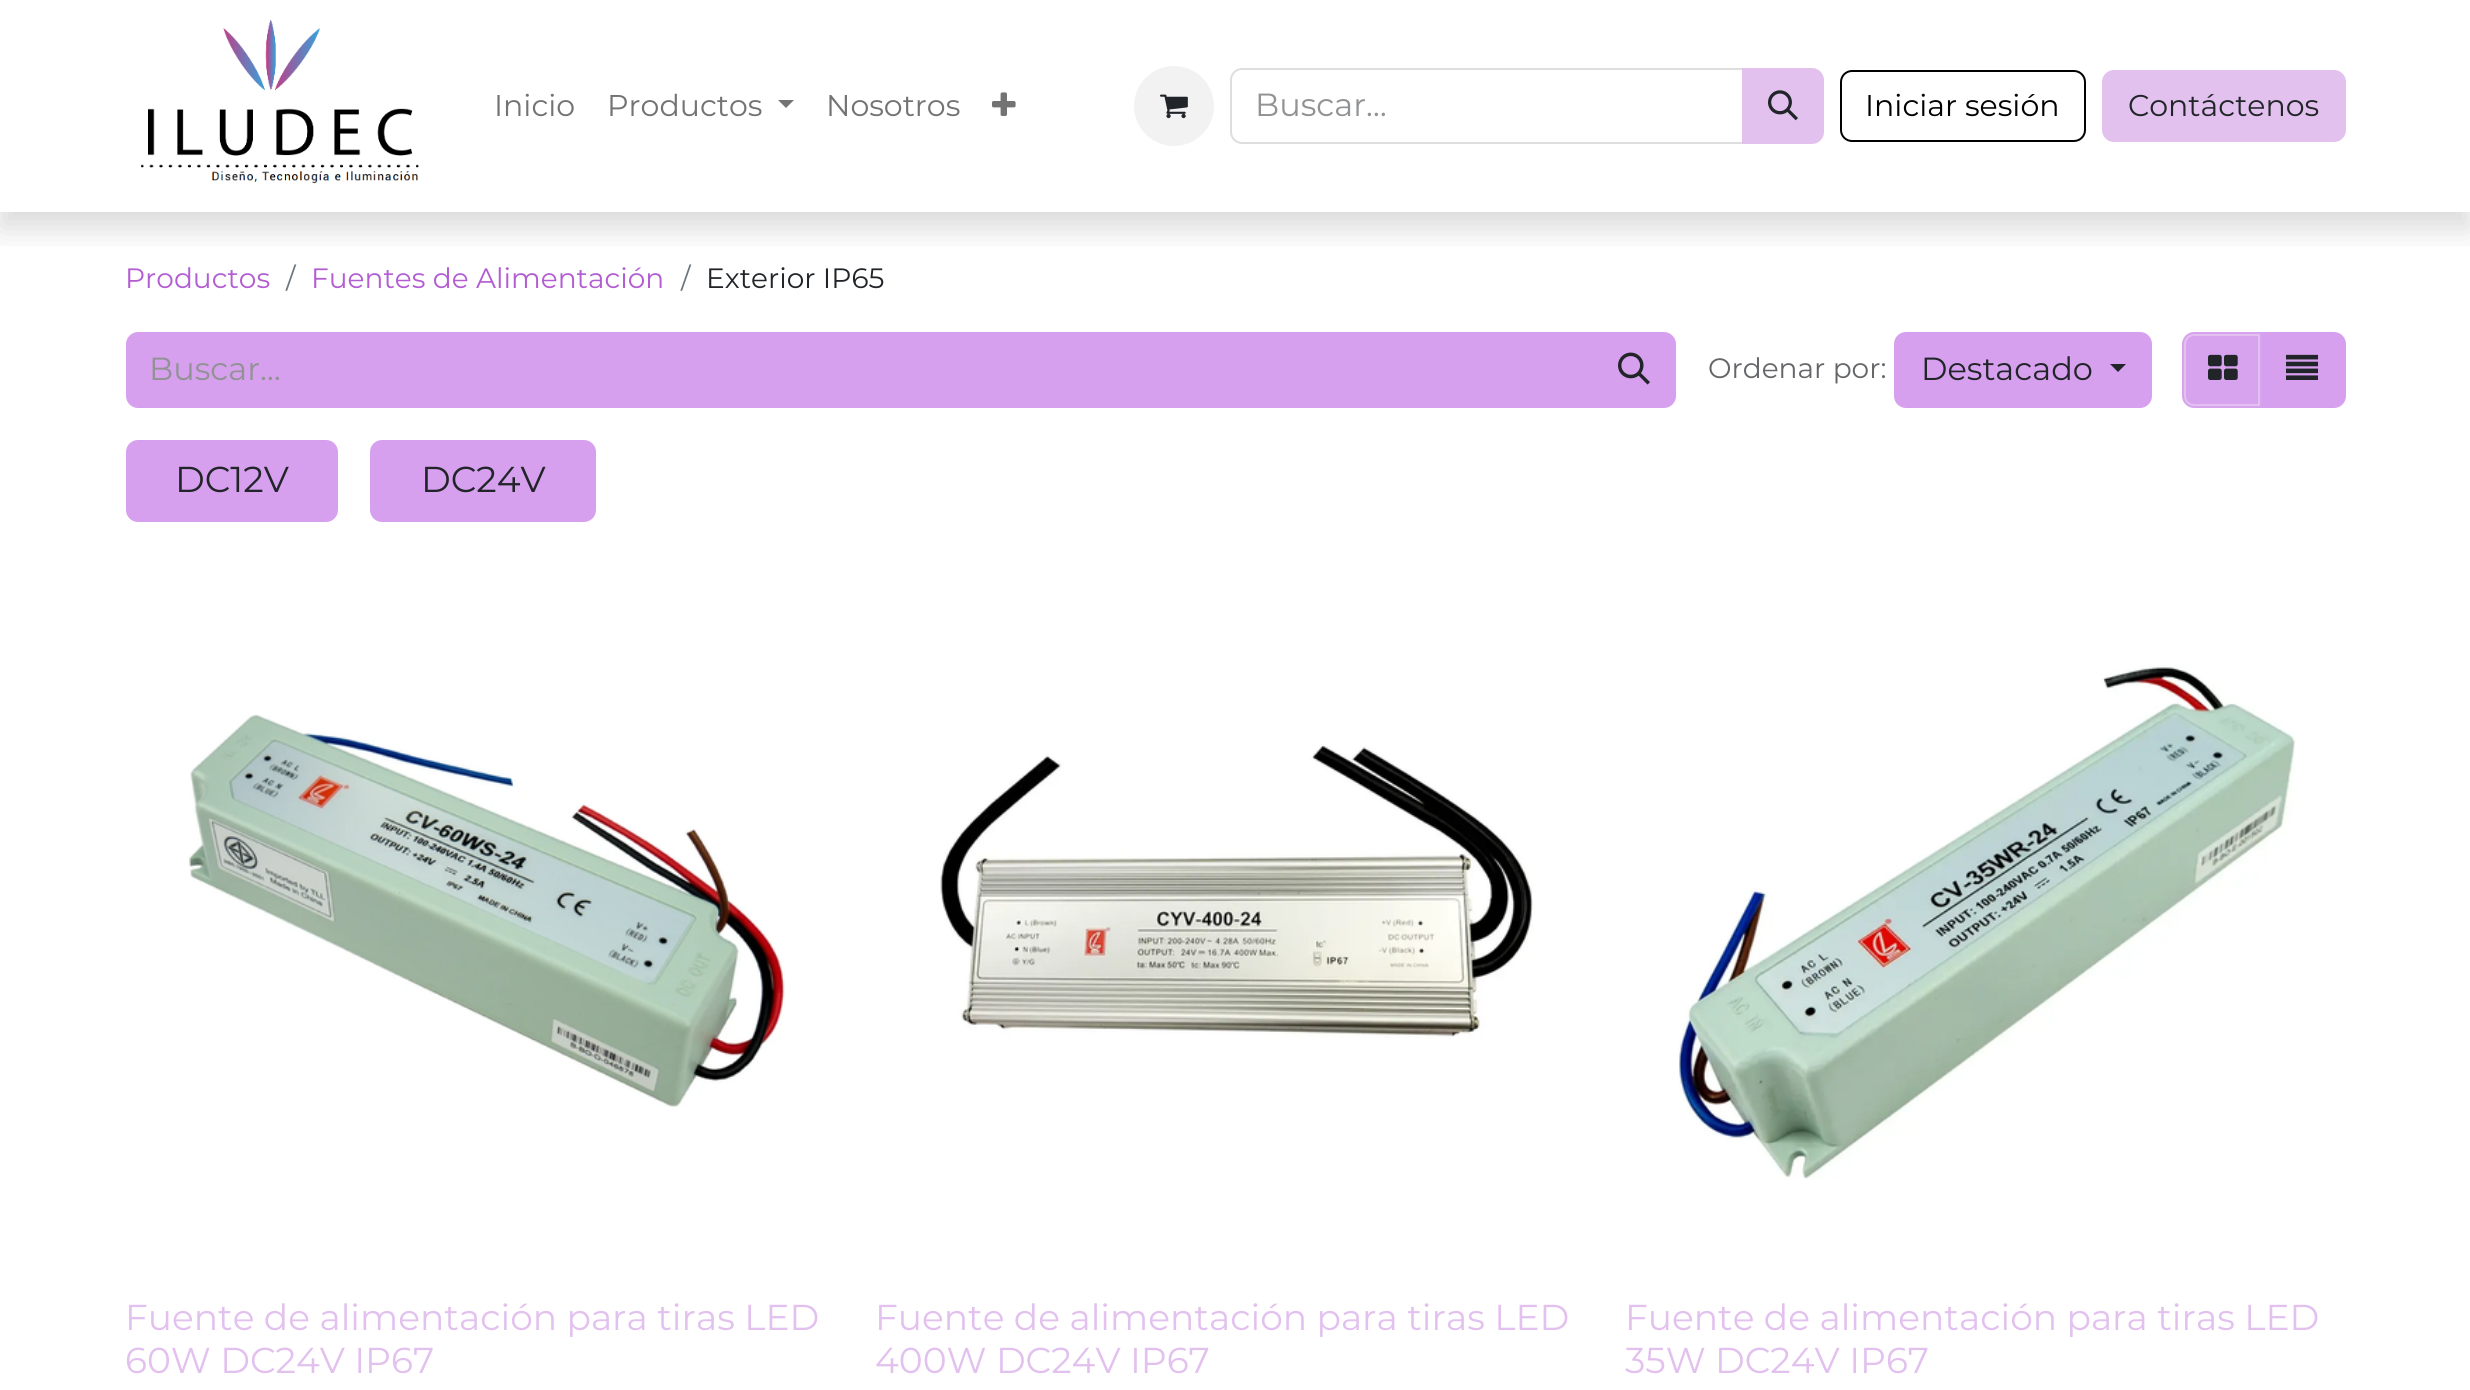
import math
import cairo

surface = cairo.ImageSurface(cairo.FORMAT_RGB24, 2470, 1390)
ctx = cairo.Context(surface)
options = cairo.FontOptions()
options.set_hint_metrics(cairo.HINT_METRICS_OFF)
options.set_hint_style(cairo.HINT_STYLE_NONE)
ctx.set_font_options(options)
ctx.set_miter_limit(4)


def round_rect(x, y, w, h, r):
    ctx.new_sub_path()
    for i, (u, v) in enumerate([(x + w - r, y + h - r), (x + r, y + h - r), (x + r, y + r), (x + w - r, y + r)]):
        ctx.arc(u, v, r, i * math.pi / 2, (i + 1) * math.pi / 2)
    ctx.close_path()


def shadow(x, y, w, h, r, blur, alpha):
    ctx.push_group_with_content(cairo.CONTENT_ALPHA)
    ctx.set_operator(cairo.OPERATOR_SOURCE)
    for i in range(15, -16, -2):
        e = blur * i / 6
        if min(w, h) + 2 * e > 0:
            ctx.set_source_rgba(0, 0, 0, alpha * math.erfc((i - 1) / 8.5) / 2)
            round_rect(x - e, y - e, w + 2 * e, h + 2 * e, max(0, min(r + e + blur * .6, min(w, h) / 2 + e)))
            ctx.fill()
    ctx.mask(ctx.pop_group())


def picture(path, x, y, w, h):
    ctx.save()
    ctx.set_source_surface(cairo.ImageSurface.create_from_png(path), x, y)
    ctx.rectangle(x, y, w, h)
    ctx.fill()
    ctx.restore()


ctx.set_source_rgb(1, 1, 1)
ctx.paint()
ctx.save()
ctx.rectangle(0, 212, 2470, 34)
ctx.clip()
ctx.set_source_rgb(0, 0, 0)
shadow(0, 16, 2470, 212, 0, 16, 0.15)
ctx.restore()
picture("img1.png", 141, 19, 278, 165)
ctx.select_font_face("Montserrat")
ctx.set_font_size(30)
ctx.set_source_rgb(0.451, 0.451, 0.451)
ctx.move_to(494, 116)
ctx.show_text("Inicio")
ctx.move_to(607, 116)
ctx.show_text("Productos")
ctx.new_path()
ctx.move_to(778, 100)
ctx.line_to(794, 100)
ctx.line_to(786, 108)
ctx.close_path()
ctx.fill()
ctx.move_to(826, 116)
ctx.show_text("Nosotros")
picture("img2.png", 992, 92, 24, 24)
ctx.set_source_rgb(0.949, 0.949, 0.949)
ctx.arc(1174, 106, 40, 0, 2 * math.pi)
ctx.fill()
picture("img3.png", 1160, 94, 28, 25)
ctx.new_path()
ctx.move_to(1242, 69)
ctx.line_to(1743, 69)
ctx.line_to(1743, 143)
ctx.line_to(1242, 143)
ctx.curve_to(1236, 143, 1231, 138, 1231, 132)
ctx.line_to(1231, 80)
ctx.curve_to(1231, 74, 1236, 69, 1242, 69)
ctx.close_path()
ctx.set_source_rgb(0.871, 0.871, 0.875)
ctx.stroke()
ctx.set_font_size(32)
ctx.set_source_rgb(0.565, 0.573, 0.58)
ctx.move_to(1255, 116)
ctx.show_text("Buscar…")
ctx.set_source_rgb(0.886, 0.757, 0.933)
ctx.new_path()
ctx.move_to(1743, 69)
ctx.line_to(1812, 69)
ctx.curve_to(1818, 69, 1823, 74, 1823, 80)
ctx.line_to(1823, 132)
ctx.curve_to(1823, 138, 1818, 143, 1812, 143)
ctx.line_to(1743, 143)
ctx.close_path()
ctx.fill_preserve()
ctx.stroke()
picture("img4.png", 1768, 90, 30, 31)
round_rect(1841, 71, 244, 70, 11)
ctx.set_source_rgb(0.004, 0.004, 0.004)
ctx.stroke()
ctx.set_font_size(30)
ctx.move_to(1865, 116)
ctx.show_text("Iniciar sesión")
ctx.set_source_rgb(0.886, 0.757, 0.933)
round_rect(2103, 71, 242, 70, 11)
ctx.fill_preserve()
ctx.stroke()
ctx.set_source_rgb(0.129, 0.145, 0.161)
ctx.move_to(2128, 116)
ctx.show_text("Contáctenos")
ctx.set_font_size(28)
ctx.set_source_rgb(0.702, 0.365, 0.827)
ctx.move_to(125, 288)
ctx.show_text("Productos")
ctx.set_source_rgb(0.424, 0.459, 0.49)
ctx.move_to(286, 288)
ctx.show_text("/")
ctx.set_source_rgb(0.702, 0.365, 0.827)
ctx.move_to(311, 288)
ctx.show_text("Fuentes de Alimentación")
ctx.set_source_rgb(0.424, 0.459, 0.49)
ctx.move_to(681, 288)
ctx.show_text("/")
ctx.set_source_rgb(0.129, 0.145, 0.161)
ctx.move_to(706, 288)
ctx.show_text("Exterior IP65")
ctx.set_source_rgb(0.843, 0.627, 0.933)
ctx.new_path()
ctx.move_to(138, 332)
ctx.line_to(1594, 332)
ctx.line_to(1594, 408)
ctx.line_to(138, 408)
ctx.curve_to(131.5, 408, 126, 402.5, 126, 396)
ctx.line_to(126, 344)
ctx.curve_to(126, 337.5, 131.5, 332, 138, 332)
ctx.close_path()
ctx.fill()
ctx.set_font_size(32)
ctx.set_source_rgb(0.565, 0.573, 0.58)
ctx.move_to(149, 380)
ctx.show_text("Buscar…")
ctx.set_source_rgb(0.843, 0.627, 0.933)
ctx.new_path()
ctx.move_to(1593, 333)
ctx.line_to(1664, 333)
ctx.curve_to(1670, 333, 1675, 338, 1675, 344)
ctx.line_to(1675, 396)
ctx.curve_to(1675, 402, 1670, 407, 1664, 407)
ctx.line_to(1593, 407)
ctx.close_path()
ctx.fill_preserve()
ctx.stroke()
picture("img5.png", 1618, 352, 32, 33)
ctx.set_font_size(28)
ctx.set_source_rgb(0.392, 0.4, 0.412)
ctx.move_to(1708, 378)
ctx.show_text("Ordenar por:")
ctx.set_source_rgb(0.843, 0.627, 0.933)
round_rect(1895, 333, 256, 74, 11)
ctx.fill_preserve()
ctx.stroke()
ctx.set_font_size(32)
ctx.set_source_rgb(0.129, 0.145, 0.161)
ctx.move_to(1921, 380)
ctx.show_text("Destacado")
ctx.new_path()
ctx.move_to(2110, 364)
ctx.line_to(2126, 364)
ctx.line_to(2118, 372)
ctx.close_path()
ctx.fill()
ctx.set_source_rgb(0.843, 0.627, 0.933)
ctx.new_path()
ctx.move_to(2261, 333)
ctx.line_to(2334, 333)
ctx.curve_to(2340, 333, 2345, 338, 2345, 344)
ctx.line_to(2345, 396)
ctx.curve_to(2345, 402, 2340, 407, 2334, 407)
ctx.line_to(2261, 407)
ctx.close_path()
ctx.fill_preserve()
ctx.stroke()
ctx.set_source_rgb(0.847, 0.639, 0.933)
ctx.new_path()
ctx.move_to(2194, 332)
ctx.line_to(2262, 332)
ctx.line_to(2262, 408)
ctx.line_to(2194, 408)
ctx.curve_to(2187.5, 408, 2182, 402.5, 2182, 396)
ctx.line_to(2182, 344)
ctx.curve_to(2182, 337.5, 2187.5, 332, 2194, 332)
ctx.close_path()
ctx.fill()
ctx.new_path()
ctx.move_to(2194, 335)
ctx.line_to(2259, 335)
ctx.line_to(2259, 405)
ctx.line_to(2194, 405)
ctx.curve_to(2189, 405, 2185, 401, 2185, 396)
ctx.line_to(2185, 344)
ctx.curve_to(2185, 339, 2189, 335, 2194, 335)
ctx.close_path()
ctx.set_source_rgb(0.886, 0.757, 0.933)
ctx.stroke()
picture("img6.png", 2208, 354, 30, 26)
picture("img7.png", 2286, 354, 32, 26)
ctx.set_source_rgb(0.843, 0.627, 0.933)
round_rect(127, 441, 210, 80, 11)
ctx.fill_preserve()
ctx.stroke()
ctx.set_font_size(36)
ctx.set_source_rgb(0.129, 0.145, 0.161)
ctx.move_to(175, 492)
ctx.show_text("DC12V")
ctx.set_source_rgb(0.843, 0.627, 0.933)
round_rect(371, 441, 224, 80, 11)
ctx.fill_preserve()
ctx.stroke()
ctx.set_source_rgb(0.129, 0.145, 0.161)
ctx.move_to(421, 492)
ctx.show_text("DC24V")
picture("img8.png", 189, 714, 596, 393)
ctx.set_source_rgb(0.886, 0.757, 0.933)
ctx.move_to(125, 1330)
ctx.show_text("Fuente de alimentación para tiras LED")
ctx.move_to(125, 1373)
ctx.show_text("60W DC24V IP67")
picture("img9.png", 940, 745, 593, 294)
ctx.move_to(875, 1330)
ctx.show_text("Fuente de alimentación para tiras LED")
ctx.move_to(875, 1373)
ctx.show_text("400W DC24V IP67")
picture("img10.png", 1678, 665, 618, 514)
ctx.move_to(1625, 1330)
ctx.show_text("Fuente de alimentación para tiras LED")
ctx.move_to(1625, 1373)
ctx.show_text("35W DC24V IP67")
surface.write_to_png("page.png")
